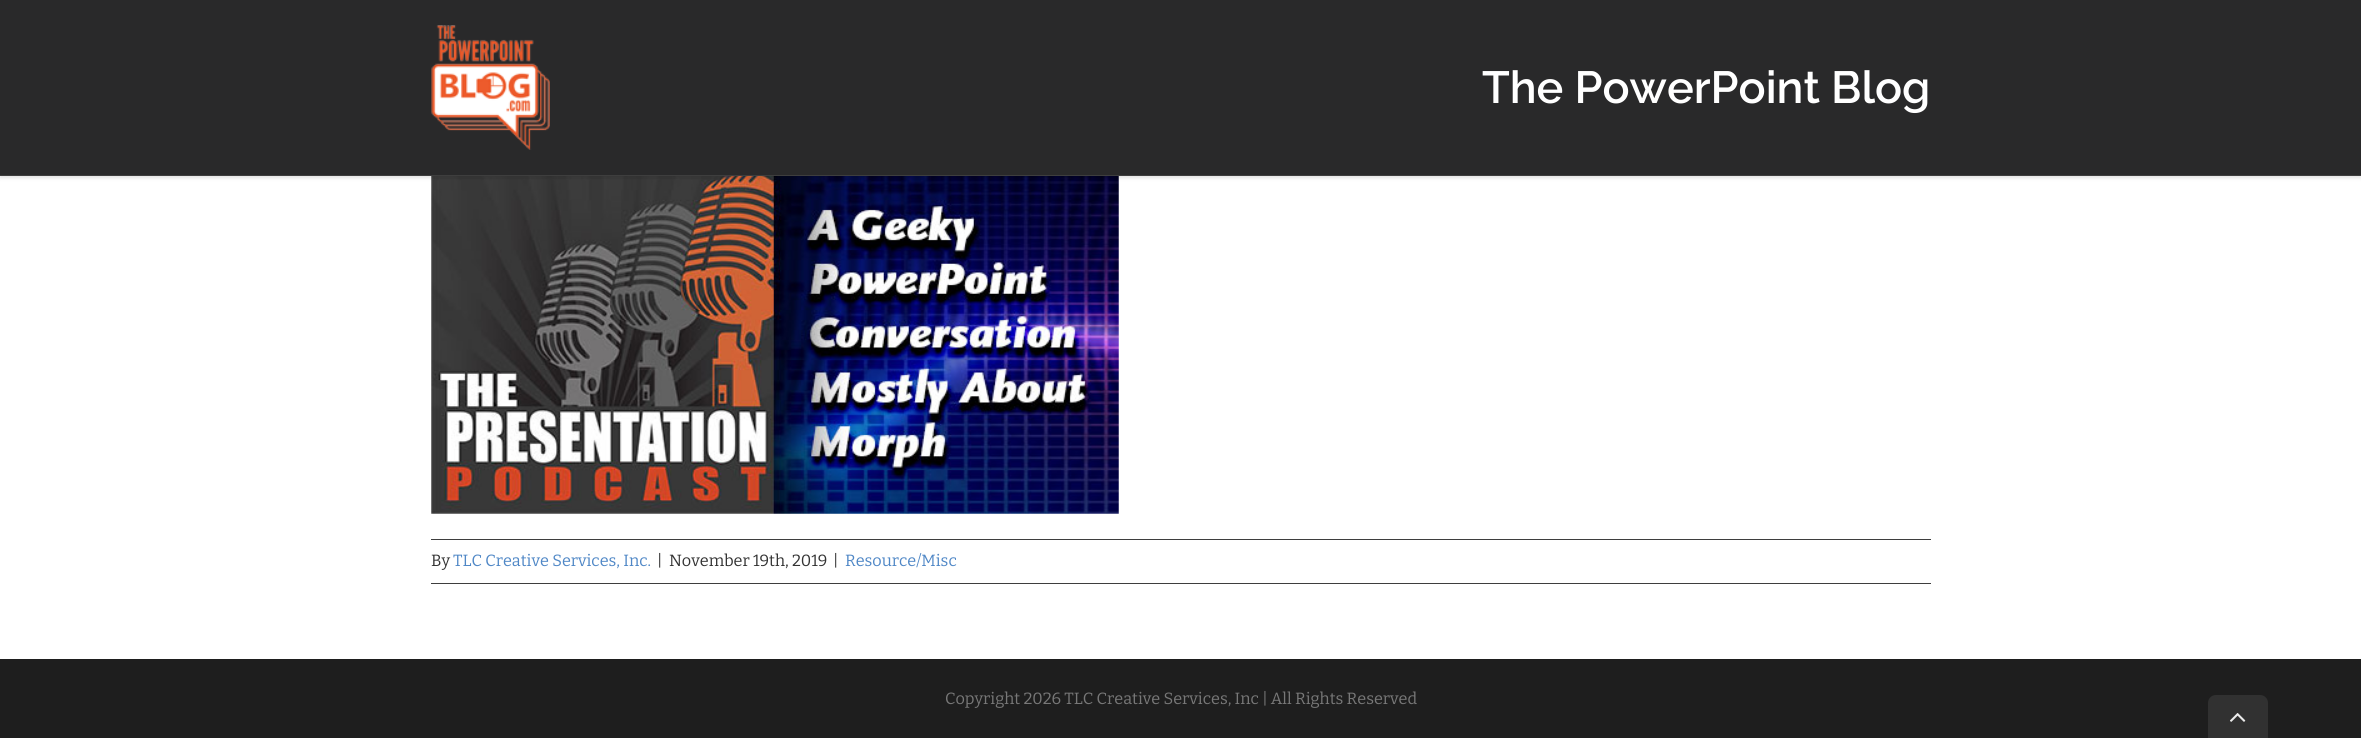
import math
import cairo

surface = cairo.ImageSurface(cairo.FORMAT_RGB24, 2361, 738)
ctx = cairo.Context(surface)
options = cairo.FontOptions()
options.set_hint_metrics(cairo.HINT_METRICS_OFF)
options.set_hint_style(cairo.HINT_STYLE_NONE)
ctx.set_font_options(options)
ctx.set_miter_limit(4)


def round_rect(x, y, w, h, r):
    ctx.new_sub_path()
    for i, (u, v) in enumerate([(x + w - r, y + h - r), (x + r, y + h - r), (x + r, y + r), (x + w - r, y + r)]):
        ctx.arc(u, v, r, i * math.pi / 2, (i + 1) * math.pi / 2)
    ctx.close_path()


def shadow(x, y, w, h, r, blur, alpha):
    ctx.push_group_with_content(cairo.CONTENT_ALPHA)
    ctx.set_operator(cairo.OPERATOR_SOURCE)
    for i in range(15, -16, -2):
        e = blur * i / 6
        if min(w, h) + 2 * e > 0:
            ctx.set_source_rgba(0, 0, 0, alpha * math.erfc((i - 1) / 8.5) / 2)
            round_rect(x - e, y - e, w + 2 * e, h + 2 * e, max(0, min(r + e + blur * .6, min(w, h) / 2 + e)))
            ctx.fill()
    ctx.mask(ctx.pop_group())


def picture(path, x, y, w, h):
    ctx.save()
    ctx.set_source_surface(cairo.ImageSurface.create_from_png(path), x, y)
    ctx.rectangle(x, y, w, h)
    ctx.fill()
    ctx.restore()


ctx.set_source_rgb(1, 1, 1)
ctx.paint()
picture("img2.png", 431, 176, 688, 338)
ctx.set_source_rgb(0, 0, 0)
shadow(0, 1, 2361, 177, 0, 2, 0.12)
ctx.set_source_rgb(0.161, 0.161, 0.165)
ctx.rectangle(0, 0, 2361, 175)
ctx.fill()
ctx.set_source_rgb(0.243, 0.243, 0.243)
ctx.rectangle(0, 175, 2361, 1)
ctx.fill()
picture("img1.png", 431, 25, 119, 125)
ctx.select_font_face("Raleway SemiBold")
ctx.set_font_size(45)
ctx.set_source_rgb(1, 1, 1)
ctx.move_to(1482, 103)
ctx.show_text("The PowerPoint Blog")
ctx.set_source_rgb(0.243, 0.243, 0.243)
ctx.rectangle(431, 539, 1500, 1)
ctx.fill()
ctx.rectangle(431, 583, 1500, 1)
ctx.fill()
ctx.select_font_face("Bitter")
ctx.set_font_size(16.25)
ctx.set_source_rgb(0.2, 0.2, 0.2)
ctx.move_to(431, 566)
ctx.show_text("By")
ctx.set_source_rgb(0.31, 0.529, 0.776)
ctx.move_to(453, 566)
ctx.show_text("TLC Creative Services, Inc.")
ctx.set_source_rgb(0.2, 0.2, 0.2)
ctx.move_to(657, 566)
ctx.show_text("|")
ctx.move_to(669, 566)
ctx.show_text("November 19th, 2019")
ctx.move_to(833, 566)
ctx.show_text("|")
ctx.set_source_rgb(0.31, 0.529, 0.776)
ctx.move_to(845, 566)
ctx.show_text("Resource/Misc")
ctx.set_source_rgb(0.118, 0.118, 0.118)
ctx.rectangle(0, 659, 2361, 79)
ctx.fill()
ctx.set_source_rgb(0.471, 0.471, 0.471)
ctx.move_to(945, 704)
ctx.show_text("Copyright 2026 TLC Creative Services, Inc | All Rights Reserved")
ctx.set_source_rgb(0.192, 0.192, 0.192)
ctx.new_path()
ctx.move_to(2216, 695)
ctx.line_to(2260, 695)
ctx.curve_to(2264.5, 695, 2268, 698.5, 2268, 703)
ctx.line_to(2268, 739)
ctx.line_to(2208, 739)
ctx.line_to(2208, 703)
ctx.curve_to(2208, 698.5, 2211.5, 695, 2216, 695)
ctx.close_path()
ctx.fill()
picture("img3.png", 2230, 713, 16, 9)
surface.write_to_png("page.png")
